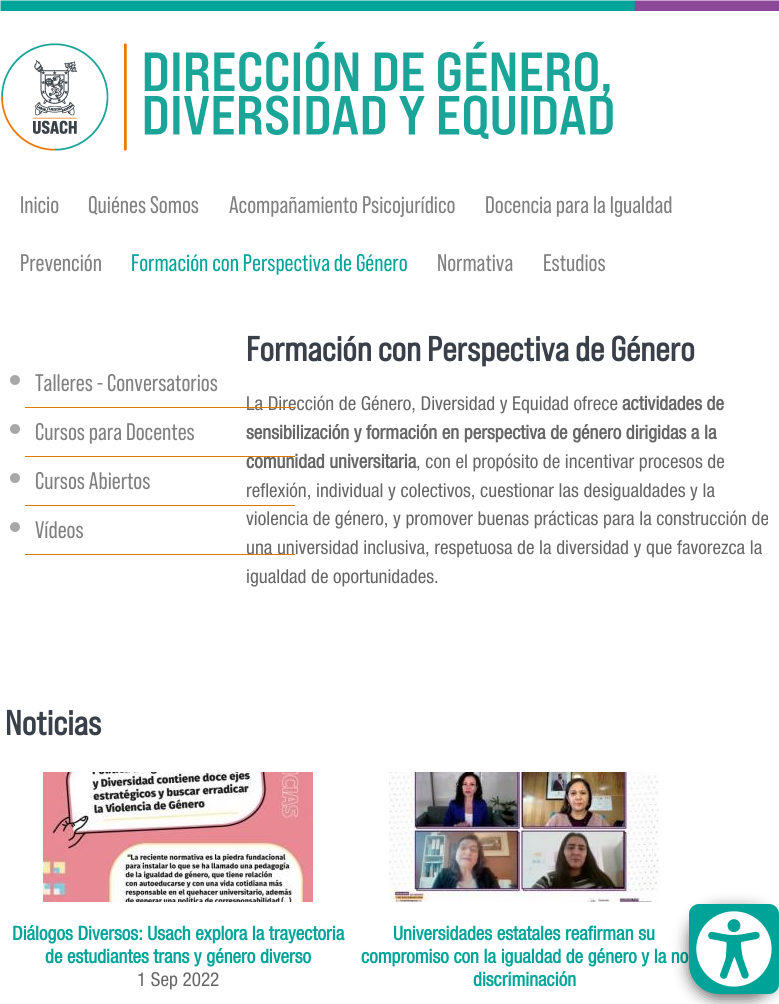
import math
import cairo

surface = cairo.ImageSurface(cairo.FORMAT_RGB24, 779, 1004)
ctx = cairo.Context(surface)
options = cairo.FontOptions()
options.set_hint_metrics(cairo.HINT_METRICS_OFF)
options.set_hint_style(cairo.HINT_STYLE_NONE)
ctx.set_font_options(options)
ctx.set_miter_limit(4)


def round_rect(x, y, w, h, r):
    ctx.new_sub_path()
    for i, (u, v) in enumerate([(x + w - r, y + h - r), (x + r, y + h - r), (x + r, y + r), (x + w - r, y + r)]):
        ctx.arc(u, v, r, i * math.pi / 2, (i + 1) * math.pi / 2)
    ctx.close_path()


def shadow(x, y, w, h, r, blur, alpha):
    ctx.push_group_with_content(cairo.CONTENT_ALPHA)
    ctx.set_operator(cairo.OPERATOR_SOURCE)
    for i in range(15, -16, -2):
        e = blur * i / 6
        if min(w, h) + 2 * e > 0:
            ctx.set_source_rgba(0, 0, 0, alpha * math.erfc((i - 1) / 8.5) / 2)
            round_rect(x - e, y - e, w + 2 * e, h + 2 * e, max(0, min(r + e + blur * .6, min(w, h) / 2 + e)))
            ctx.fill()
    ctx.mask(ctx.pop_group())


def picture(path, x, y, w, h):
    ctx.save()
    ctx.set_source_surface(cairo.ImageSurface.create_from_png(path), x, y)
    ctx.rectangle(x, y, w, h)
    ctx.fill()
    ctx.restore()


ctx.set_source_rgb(1, 1, 1)
ctx.paint()
picture("img1.png", 0, 0, 779, 11)
picture("img2.png", 1, 41, 612, 110)
ctx.select_font_face("Bebas Neue")
ctx.set_font_size(24)
ctx.set_source_rgb(0.502, 0.502, 0.502)
ctx.move_to(20, 213)
ctx.show_text("Inicio")
ctx.move_to(88, 213)
ctx.show_text("Quiénes Somos")
ctx.move_to(229, 213)
ctx.show_text("Acompañamiento Psicojurídico")
ctx.move_to(485, 213)
ctx.show_text("Docencia para la Igualdad")
ctx.move_to(20, 271)
ctx.show_text("Prevención")
ctx.set_source_rgb(0, 0.643, 0.6)
ctx.move_to(131, 271)
ctx.show_text("Formación con Perspectiva de Género")
ctx.set_source_rgb(0.502, 0.502, 0.502)
ctx.move_to(437, 271)
ctx.show_text("Normativa")
ctx.move_to(543, 271)
ctx.show_text("Estudios")
ctx.select_font_face("Bebas Neue", cairo.FONT_SLANT_NORMAL, cairo.FONT_WEIGHT_BOLD)
ctx.set_font_size(34.5)
ctx.set_source_rgb(0.224, 0.251, 0.286)
ctx.move_to(246, 361)
ctx.show_text("Formación con Perspectiva de Género")
ctx.select_font_face("Helvetica Neue")
ctx.set_font_size(19.2)
ctx.set_source_rgb(0.4, 0.4, 0.4)
ctx.move_to(246, 410)
ctx.show_text("La Dirección de Género, Diversidad y Equidad ofrece")
ctx.select_font_face("Helvetica Neue", cairo.FONT_SLANT_NORMAL, cairo.FONT_WEIGHT_BOLD)
ctx.move_to(622, 410)
ctx.show_text("actividades de")
ctx.move_to(246, 439)
ctx.show_text("sensibilización y formación en perspectiva de género dirigidas a la")
ctx.move_to(246, 468)
ctx.show_text("comunidad universitaria")
ctx.select_font_face("Helvetica Neue")
ctx.move_to(416, 468)
ctx.show_text(", con el propósito de incentivar procesos de")
ctx.move_to(246, 497)
ctx.show_text("reflexión, individual y colectivos, cuestionar las desigualdades y la")
ctx.move_to(246, 525)
ctx.show_text("violencia de género, y promover buenas prácticas para la construcción de")
ctx.move_to(246, 554)
ctx.show_text("una universidad inclusiva, respetuosa de la diversidad y que favorezca la")
ctx.move_to(246, 583)
ctx.show_text("igualdad de oportunidades.")
ctx.select_font_face("Bebas Neue", cairo.FONT_SLANT_NORMAL, cairo.FONT_WEIGHT_BOLD)
ctx.set_font_size(34.5)
ctx.set_source_rgb(0.224, 0.251, 0.286)
ctx.move_to(5, 735)
ctx.show_text("Noticias")
picture("img3.png", 43, 772, 270, 130)
ctx.select_font_face("Helvetica Neue", cairo.FONT_SLANT_NORMAL, cairo.FONT_WEIGHT_BOLD)
ctx.set_font_size(19.2)
ctx.set_source_rgb(0, 0.643, 0.6)
ctx.move_to(12, 940)
ctx.show_text("Diálogos Diversos: Usach explora la trayectoria")
ctx.move_to(45, 963)
ctx.show_text("de estudiantes trans y género diverso")
ctx.select_font_face("Helvetica Neue")
ctx.set_source_rgb(0.4, 0.4, 0.4)
ctx.move_to(137, 986)
ctx.show_text("1 Sep 2022")
picture("img4.png", 389, 772, 270, 130)
ctx.select_font_face("Helvetica Neue", cairo.FONT_SLANT_NORMAL, cairo.FONT_WEIGHT_BOLD)
ctx.set_source_rgb(0, 0.643, 0.6)
ctx.move_to(393, 940)
ctx.show_text("Universidades estatales reafirman su")
ctx.move_to(361, 963)
ctx.show_text("compromiso con la igualdad de género y la no")
ctx.move_to(473, 986)
ctx.show_text("discriminación")
picture("img5.png", 10, 375, 10, 10)
ctx.set_source_rgb(0.867, 0.475, 0)
ctx.rectangle(25, 407, 270, 1)
ctx.fill()
ctx.select_font_face("Bebas Neue")
ctx.set_font_size(24)
ctx.set_source_rgb(0.502, 0.502, 0.502)
ctx.move_to(35, 391)
ctx.show_text("Talleres - Conversatorios")
picture("img5.png", 10, 424, 10, 10)
ctx.set_source_rgb(0.867, 0.475, 0)
ctx.rectangle(25, 456, 270, 1)
ctx.fill()
ctx.set_source_rgb(0.502, 0.502, 0.502)
ctx.move_to(35, 440)
ctx.show_text("Cursos para Docentes")
picture("img5.png", 10, 473, 10, 10)
ctx.set_source_rgb(0.867, 0.475, 0)
ctx.rectangle(25, 505, 270, 1)
ctx.fill()
ctx.set_source_rgb(0.502, 0.502, 0.502)
ctx.move_to(35, 489)
ctx.show_text("Cursos Abiertos")
picture("img5.png", 10, 522, 10, 10)
ctx.set_source_rgb(0.867, 0.475, 0)
ctx.rectangle(25, 554, 270, 1)
ctx.fill()
ctx.set_source_rgb(0.502, 0.502, 0.502)
ctx.move_to(35, 538)
ctx.show_text("Vídeos")
ctx.set_source_rgb(0, 0, 0)
shadow(689, 909, 90, 90, 30, 7.5, 0.6)
ctx.set_source_rgb(0, 0.639, 0.596)
ctx.new_path()
ctx.move_to(699, 904)
ctx.line_to(769, 904)
ctx.curve_to(774.5, 904, 779, 908.5, 779, 914)
ctx.line_to(779, 984)
ctx.curve_to(779, 989.5, 774.5, 994, 769, 994)
ctx.line_to(719, 994)
ctx.curve_to(702.5, 994, 689, 980.5, 689, 964)
ctx.line_to(689, 914)
ctx.curve_to(689, 908.5, 693.5, 904, 699, 904)
ctx.close_path()
ctx.fill()
picture("img6.png", 696, 911, 76, 76)
surface.write_to_png("page.png")
